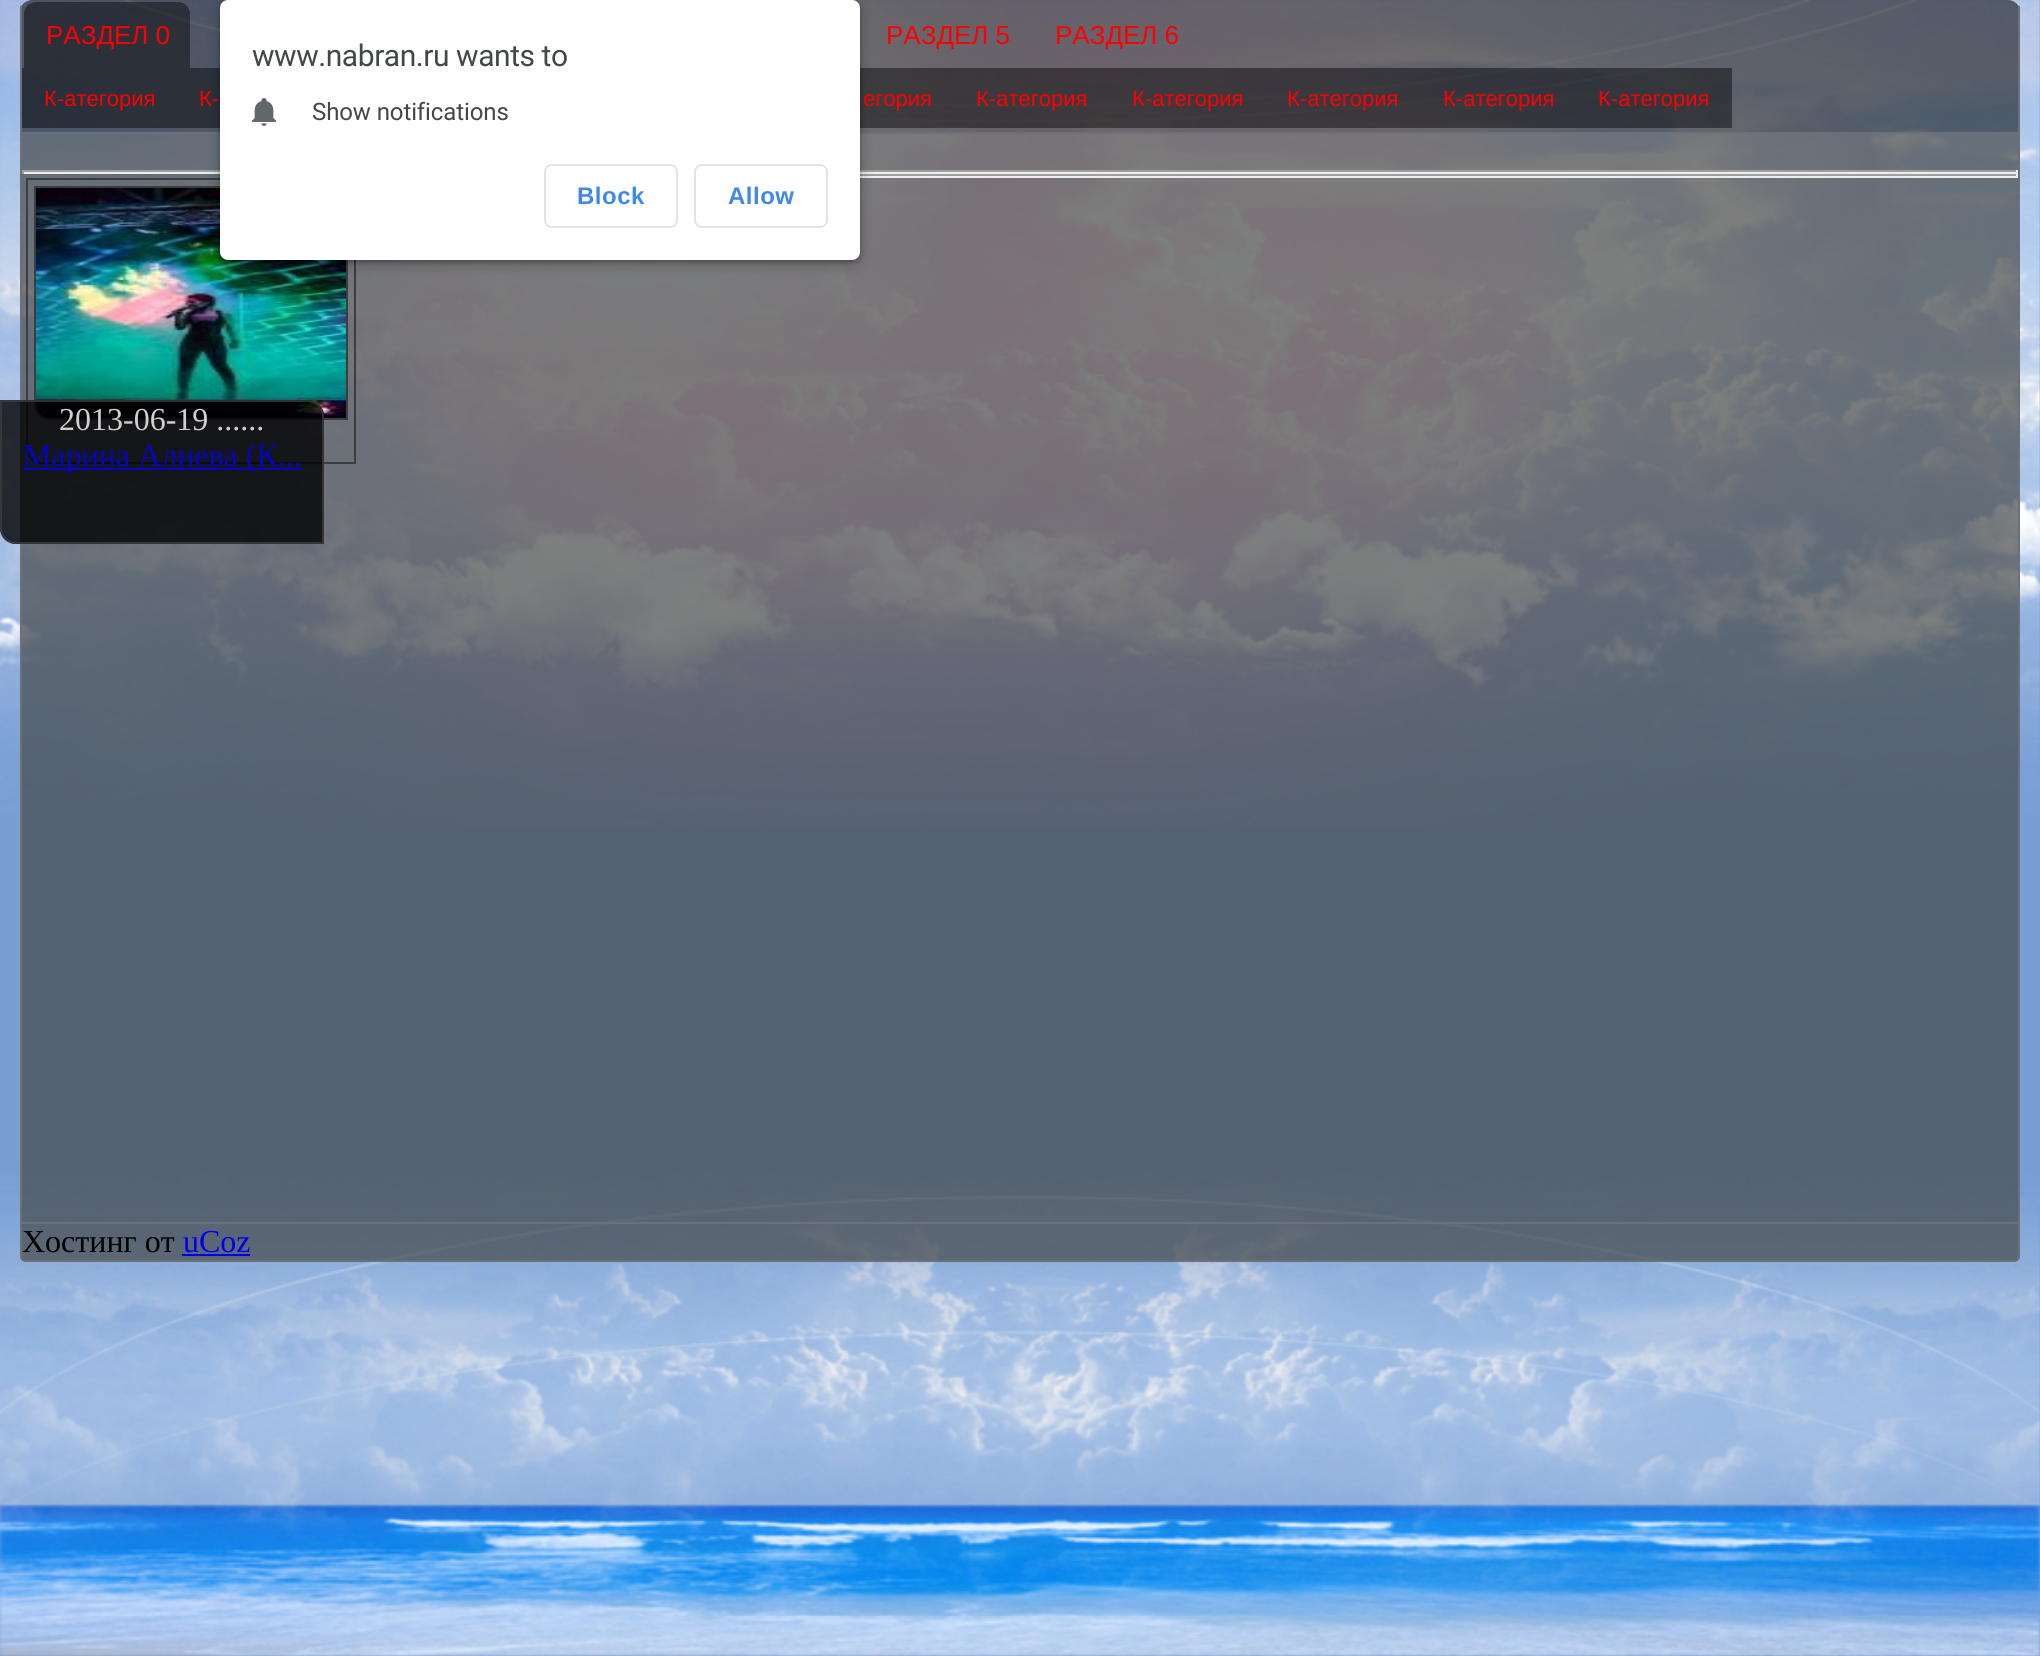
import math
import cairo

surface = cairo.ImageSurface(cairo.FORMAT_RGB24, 2040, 1656)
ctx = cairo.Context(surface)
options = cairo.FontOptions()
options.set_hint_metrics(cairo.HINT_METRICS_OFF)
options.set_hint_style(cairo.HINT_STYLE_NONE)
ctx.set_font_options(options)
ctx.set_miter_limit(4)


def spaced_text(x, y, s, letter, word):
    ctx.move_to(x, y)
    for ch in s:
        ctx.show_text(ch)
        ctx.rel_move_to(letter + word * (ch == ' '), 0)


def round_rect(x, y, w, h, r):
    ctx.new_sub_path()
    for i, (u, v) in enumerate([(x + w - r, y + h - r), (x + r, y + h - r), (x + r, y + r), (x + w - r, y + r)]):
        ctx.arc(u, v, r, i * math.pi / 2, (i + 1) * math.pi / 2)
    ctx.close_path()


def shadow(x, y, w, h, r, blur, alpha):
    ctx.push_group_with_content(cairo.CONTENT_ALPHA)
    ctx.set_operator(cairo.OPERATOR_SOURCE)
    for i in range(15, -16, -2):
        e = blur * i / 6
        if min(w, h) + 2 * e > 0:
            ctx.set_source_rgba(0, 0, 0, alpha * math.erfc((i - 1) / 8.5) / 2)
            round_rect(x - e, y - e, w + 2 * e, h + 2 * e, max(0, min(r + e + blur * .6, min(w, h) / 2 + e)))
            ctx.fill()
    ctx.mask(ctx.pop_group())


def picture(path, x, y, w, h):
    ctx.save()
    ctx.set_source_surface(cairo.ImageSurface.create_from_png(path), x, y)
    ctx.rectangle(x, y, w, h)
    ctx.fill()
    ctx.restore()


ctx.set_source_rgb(0.471, 0.62, 0.827)
ctx.paint()
picture("img1.png", 0, 0, 2040, 828)
picture("img2.png", 21, 0, 1998, 132)
ctx.set_source_rgb(0.424, 0.439, 0.475)
ctx.rectangle(2018, 6, 2, 126)
ctx.fill()
ctx.rectangle(20, 6, 2, 126)
ctx.fill()
picture("img3.png", 24, 2, 166, 66)
ctx.select_font_face("Liberation Sans")
ctx.set_font_size(26)
ctx.set_source_rgb(1, 0, 0)
ctx.move_to(46, 44)
ctx.show_text("РАЗДЕЛ 0")
ctx.set_source_rgba(0, 0, 0, 0.44)
ctx.rectangle(22, 68, 156, 60)
ctx.fill()
ctx.set_font_size(22)
ctx.set_source_rgb(1, 0, 0)
ctx.move_to(44, 106)
ctx.show_text("К-атегория")
ctx.set_source_rgba(0, 0, 0, 0.44)
ctx.rectangle(178, 68, 42, 60)
ctx.fill()
ctx.set_source_rgb(1, 0, 0)
ctx.move_to(199, 106)
ctx.show_text("К-")
ctx.set_source_rgba(0, 0, 0, 0.44)
ctx.rectangle(860, 68, 94, 60)
ctx.fill()
ctx.set_source_rgb(1, 0, 0)
ctx.move_to(863, 106)
ctx.show_text("егория")
ctx.set_source_rgba(0, 0, 0, 0.44)
ctx.rectangle(954, 68, 156, 60)
ctx.fill()
ctx.set_source_rgb(1, 0, 0)
ctx.move_to(976, 106)
ctx.show_text("К-атегория")
ctx.set_source_rgba(0, 0, 0, 0.44)
ctx.rectangle(1110, 68, 156, 60)
ctx.fill()
ctx.set_source_rgb(1, 0, 0)
ctx.move_to(1132, 106)
ctx.show_text("К-атегория")
ctx.set_source_rgba(0, 0, 0, 0.44)
ctx.rectangle(1266, 68, 154, 60)
ctx.fill()
ctx.set_source_rgb(1, 0, 0)
ctx.move_to(1287, 106)
ctx.show_text("К-атегория")
ctx.set_source_rgba(0, 0, 0, 0.44)
ctx.rectangle(1420, 68, 156, 60)
ctx.fill()
ctx.set_source_rgb(1, 0, 0)
ctx.move_to(1443, 106)
ctx.show_text("К-атегория")
ctx.set_source_rgba(0, 0, 0, 0.44)
ctx.rectangle(1576, 68, 156, 60)
ctx.fill()
ctx.set_source_rgb(1, 0, 0)
ctx.move_to(1598, 106)
ctx.show_text("К-атегория")
ctx.set_font_size(26)
ctx.move_to(886, 44)
ctx.show_text("РАЗДЕЛ 5")
ctx.move_to(1055, 44)
ctx.show_text("РАЗДЕЛ 6")
picture("img8.png", 195, 504, 1845, 183)
picture("img9.png", 0, 509, 1582, 185)
picture("img7.png", 35, 497, 2005, 140)
picture("img10.png", 0, 1167, 2040, 489)
ctx.set_source_rgba(0.278, 0.286, 0.286, 0.7)
ctx.rectangle(21, 133, 1998, 1090)
ctx.fill_preserve()
ctx.set_source_rgb(0.424, 0.439, 0.475)
ctx.stroke()
ctx.set_source_rgb(0.624, 0.624, 0.624)
ctx.rectangle(22, 170, 1996, 2)
ctx.fill()
ctx.set_source_rgb(0.933, 0.933, 0.933)
ctx.rectangle(2016, 170, 2, 4)
ctx.fill()
ctx.rectangle(22, 172, 1996, 2)
ctx.fill()
ctx.set_source_rgb(0.624, 0.624, 0.624)
ctx.rectangle(22, 170, 2, 4)
ctx.fill()
ctx.rectangle(860, 174, 1158, 2)
ctx.fill()
ctx.set_source_rgb(0.933, 0.933, 0.933)
ctx.rectangle(2016, 174, 2, 4)
ctx.fill()
ctx.rectangle(860, 176, 1158, 2)
ctx.fill()
ctx.new_path()
ctx.move_to(27, 179)
ctx.line_to(340, 179)
ctx.curve_to(348.5, 179, 355, 185.5, 355, 194)
ctx.line_to(355, 463)
ctx.line_to(42, 463)
ctx.curve_to(33.5, 463, 27, 456.5, 27, 448)
ctx.close_path()
ctx.set_source_rgb(0.239, 0.239, 0.239)
ctx.stroke()
ctx.new_path()
ctx.move_to(35, 187)
ctx.line_to(332, 187)
ctx.curve_to(340.5, 187, 347, 193.5, 347, 202)
ctx.line_to(347, 419)
ctx.line_to(50, 419)
ctx.curve_to(41.5, 419, 35, 412.5, 35, 404)
ctx.close_path()
ctx.stroke()
picture("img4.png", 36, 188, 310, 230)
ctx.set_source_rgba(0, 0, 0, 0.8)
ctx.new_path()
ctx.move_to(0, 400)
ctx.line_to(308, 400)
ctx.curve_to(317, 400, 324, 407, 324, 416)
ctx.line_to(324, 544)
ctx.line_to(16, 544)
ctx.curve_to(7, 544, 0, 537, 0, 528)
ctx.close_path()
ctx.fill()
ctx.new_path()
ctx.move_to(1, 401)
ctx.line_to(308, 401)
ctx.curve_to(316.5, 401, 323, 407.5, 323, 416)
ctx.line_to(323, 543)
ctx.line_to(16, 543)
ctx.curve_to(7.5, 543, 1, 536.5, 1, 528)
ctx.close_path()
ctx.set_source_rgba(0.239, 0.239, 0.239, 0.8)
ctx.stroke()
ctx.select_font_face("Liberation Serif")
ctx.set_font_size(32)
ctx.set_source_rgb(0.812, 0.812, 0.812)
ctx.move_to(59, 430)
ctx.show_text("2013-06-19 ......")
ctx.set_source_rgb(0.016, 0.016, 0.765)
ctx.rectangle(22, 468, 280, 2)
ctx.fill()
ctx.move_to(23, 466)
ctx.show_text("Марина Алиева (К...")
picture("img5.png", 20, 1224, 2000, 38)
ctx.set_source_rgb(0.424, 0.439, 0.475)
ctx.set_fill_rule(cairo.FILL_RULE_EVEN_ODD)
ctx.new_path()
ctx.move_to(20, 1224)
ctx.line_to(2020, 1224)
ctx.line_to(2020, 1256)
ctx.curve_to(2020, 1259, 2017, 1262, 2014, 1262)
ctx.line_to(26, 1262)
ctx.curve_to(23, 1262, 20, 1259, 20, 1256)
ctx.close_path()
ctx.move_to(22, 1224)
ctx.line_to(2018, 1224)
ctx.line_to(2018, 1256)
ctx.curve_to(2018, 1258, 2016, 1260, 2014, 1260)
ctx.line_to(26, 1260)
ctx.curve_to(24, 1260, 22, 1258, 22, 1256)
ctx.close_path()
ctx.fill()
ctx.set_source_rgb(0, 0, 0)
ctx.move_to(22, 1252)
ctx.show_text("Хостинг от")
ctx.set_source_rgb(0, 0, 0.933)
ctx.move_to(183, 1252)
ctx.show_text("uCoz")
ctx.rectangle(182, 1254, 68, 2)
ctx.fill()
ctx.set_source_rgb(0, 0, 0)
shadow(216, 0, 648, 268, 12, 6, 0.15)
shadow(220, 2, 640, 260, 8, 2, 0.3)
ctx.set_source_rgb(1, 1, 1)
round_rect(220, 0, 640, 260, 8)
ctx.fill()
ctx.select_font_face("Roboto")
ctx.set_font_size(30)
ctx.set_source_rgb(0.263, 0.278, 0.286)
spaced_text(252, 66, "www.nabran.ru wants to", -0.45, 0)
picture("img6.png", 252, 98, 24, 28)
ctx.set_font_size(24)
spaced_text(312, 120, "Show notifications", -0.1, 0)
round_rect(545, 165, 132, 62, 7)
ctx.set_source_rgb(0.894, 0.894, 0.894)
ctx.stroke()
ctx.select_font_face("Liberation Sans", cairo.FONT_SLANT_NORMAL, cairo.FONT_WEIGHT_BOLD)
ctx.set_source_rgb(0.251, 0.537, 0.91)
spaced_text(577, 204, "Block", 0.5, 0)
round_rect(695, 165, 132, 62, 7)
ctx.set_source_rgb(0.894, 0.894, 0.894)
ctx.stroke()
ctx.set_source_rgb(0.251, 0.537, 0.91)
spaced_text(728, 204, "Allow", 0.5, 0)
surface.write_to_png("page.png")
